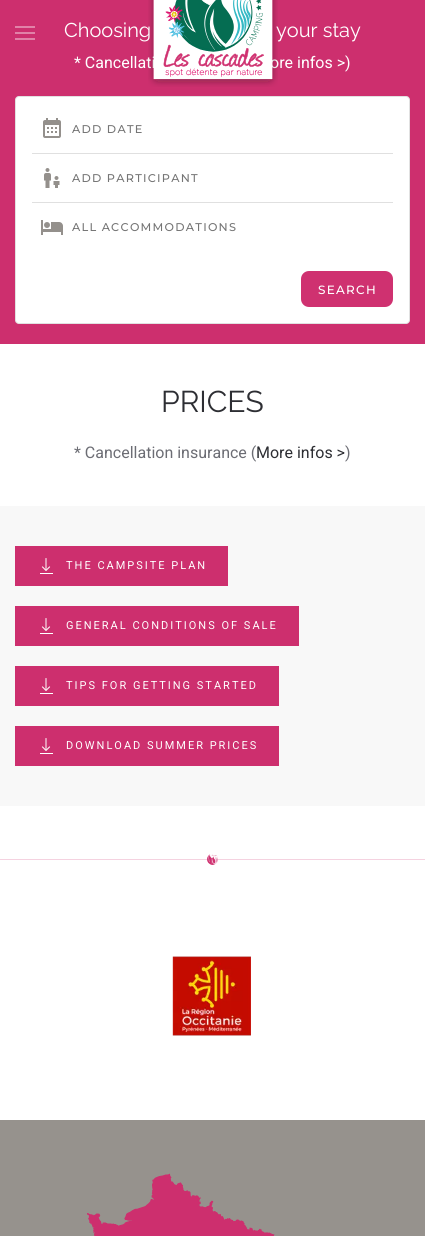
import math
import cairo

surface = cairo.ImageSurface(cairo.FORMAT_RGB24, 425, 1236)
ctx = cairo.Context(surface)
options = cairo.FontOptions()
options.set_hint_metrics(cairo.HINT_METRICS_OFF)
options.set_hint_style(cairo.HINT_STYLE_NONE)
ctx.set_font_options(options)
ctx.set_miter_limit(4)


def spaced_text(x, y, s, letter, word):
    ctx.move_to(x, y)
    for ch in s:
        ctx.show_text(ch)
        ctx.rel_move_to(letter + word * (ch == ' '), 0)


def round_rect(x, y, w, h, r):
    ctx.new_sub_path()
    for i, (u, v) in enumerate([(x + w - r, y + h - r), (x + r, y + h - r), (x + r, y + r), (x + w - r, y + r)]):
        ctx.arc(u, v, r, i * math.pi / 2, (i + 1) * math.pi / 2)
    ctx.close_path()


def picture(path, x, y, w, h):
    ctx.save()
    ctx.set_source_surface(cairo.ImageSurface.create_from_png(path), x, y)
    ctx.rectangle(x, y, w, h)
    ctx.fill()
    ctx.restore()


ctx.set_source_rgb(1, 1, 1)
ctx.paint()
ctx.set_source_rgb(0.804, 0.184, 0.431)
ctx.rectangle(0, 0, 425, 344)
ctx.fill()
ctx.set_source_rgb(0.882, 0.51, 0.659)
ctx.rectangle(15, 26, 20, 2)
ctx.fill()
ctx.rectangle(15, 32, 20, 2)
ctx.fill()
ctx.rectangle(15, 38, 20, 2)
ctx.fill()
ctx.select_font_face("Raleway Thin")
ctx.set_font_size(20)
ctx.set_source_rgb(1, 1, 1)
ctx.move_to(64, 37)
ctx.show_text("Choosing")
ctx.move_to(276, 37)
ctx.show_text("your stay")
ctx.select_font_face("Roboto")
ctx.set_font_size(16)
ctx.move_to(74, 68)
ctx.show_text("* Cancellati")
ctx.move_to(270, 68)
ctx.show_text("ore infos >)")
picture("img1.png", 148, 0, 130, 87)
round_rect(15, 96, 395, 228, 4)
ctx.fill()
round_rect(15.5, 96.5, 394, 227, 3.5)
ctx.set_source_rgba(0, 0, 0, 0.12)
ctx.set_line_width(1)
ctx.stroke()
picture("img2.png", 43, 118, 18, 20)
ctx.select_font_face("Montserrat Medium")
ctx.set_font_size(11.25)
ctx.set_source_rgb(0.459, 0.459, 0.459)
spaced_text(72, 133, "ADD DATE", 1.25, 0)
ctx.set_source_rgb(0.878, 0.878, 0.878)
ctx.rectangle(32, 153, 361, 1)
ctx.fill()
picture("img3.png", 44, 168, 16, 20)
ctx.set_source_rgb(0.459, 0.459, 0.459)
spaced_text(72, 182, "ADD PARTICIPANT", 1.25, 0)
ctx.set_source_rgb(0.878, 0.878, 0.878)
ctx.rectangle(32, 202, 361, 1)
ctx.fill()
picture("img4.png", 41, 220, 22, 15)
ctx.set_source_rgb(0.459, 0.459, 0.459)
spaced_text(72, 231, "ALL ACCOMMODATIONS", 1.25, 0)
ctx.set_source_rgb(0.812, 0.192, 0.439)
round_rect(301, 271, 92, 36, 8)
ctx.fill()
ctx.set_font_size(12)
ctx.set_source_rgb(1, 1, 1)
spaced_text(318, 294, "SEARCH", 1.25, 0)
ctx.select_font_face("Raleway Thin")
ctx.set_font_size(30)
ctx.set_source_rgb(0.176, 0.18, 0.2)
ctx.move_to(161, 412)
ctx.show_text("PRICES")
ctx.select_font_face("Roboto")
ctx.set_font_size(16)
ctx.set_source_rgb(0.424, 0.427, 0.455)
ctx.move_to(74, 458)
ctx.show_text("* Cancellation insurance (")
ctx.set_source_rgb(0.176, 0.18, 0.2)
ctx.move_to(256, 458)
ctx.show_text("More infos >")
ctx.set_source_rgb(0.424, 0.427, 0.455)
ctx.move_to(345, 458)
ctx.show_text(")")
ctx.set_source_rgb(0.969, 0.969, 0.969)
ctx.rectangle(0, 506, 425, 300)
ctx.fill()
ctx.set_source_rgb(0.804, 0.184, 0.431)
ctx.rectangle(15, 546, 213, 40)
ctx.fill()
picture("img5.png", 40, 558, 13, 16)
ctx.set_font_size(11)
ctx.set_source_rgb(1, 1, 1)
spaced_text(66, 569, "THE CAMPSITE PLAN", 2, 0)
ctx.set_source_rgb(0.804, 0.184, 0.431)
ctx.rectangle(15, 606, 284, 40)
ctx.fill()
picture("img5.png", 40, 618, 13, 16)
ctx.set_source_rgb(1, 1, 1)
spaced_text(66, 629, "GENERAL CONDITIONS OF SALE", 2, 0)
ctx.set_source_rgb(0.804, 0.184, 0.431)
ctx.rectangle(15, 666, 264, 40)
ctx.fill()
picture("img5.png", 40, 678, 13, 16)
ctx.set_source_rgb(1, 1, 1)
spaced_text(66, 689, "TIPS FOR GETTING STARTED", 2, 0)
ctx.set_source_rgb(0.804, 0.184, 0.431)
ctx.rectangle(15, 726, 264, 40)
ctx.fill()
picture("img5.png", 40, 738, 13, 16)
ctx.set_source_rgb(1, 1, 1)
spaced_text(66, 749, "DOWNLOAD SUMMER PRICES", 2, 0)
picture("img6.png", 0, 854, 425, 11)
picture("img7.png", 172, 956, 79, 80)
ctx.set_source_rgb(0.588, 0.573, 0.553)
ctx.rectangle(0, 1120, 425, 116)
ctx.fill()
picture("img8.png", 87, 1173, 188, 63)
surface.write_to_png("page.png")
